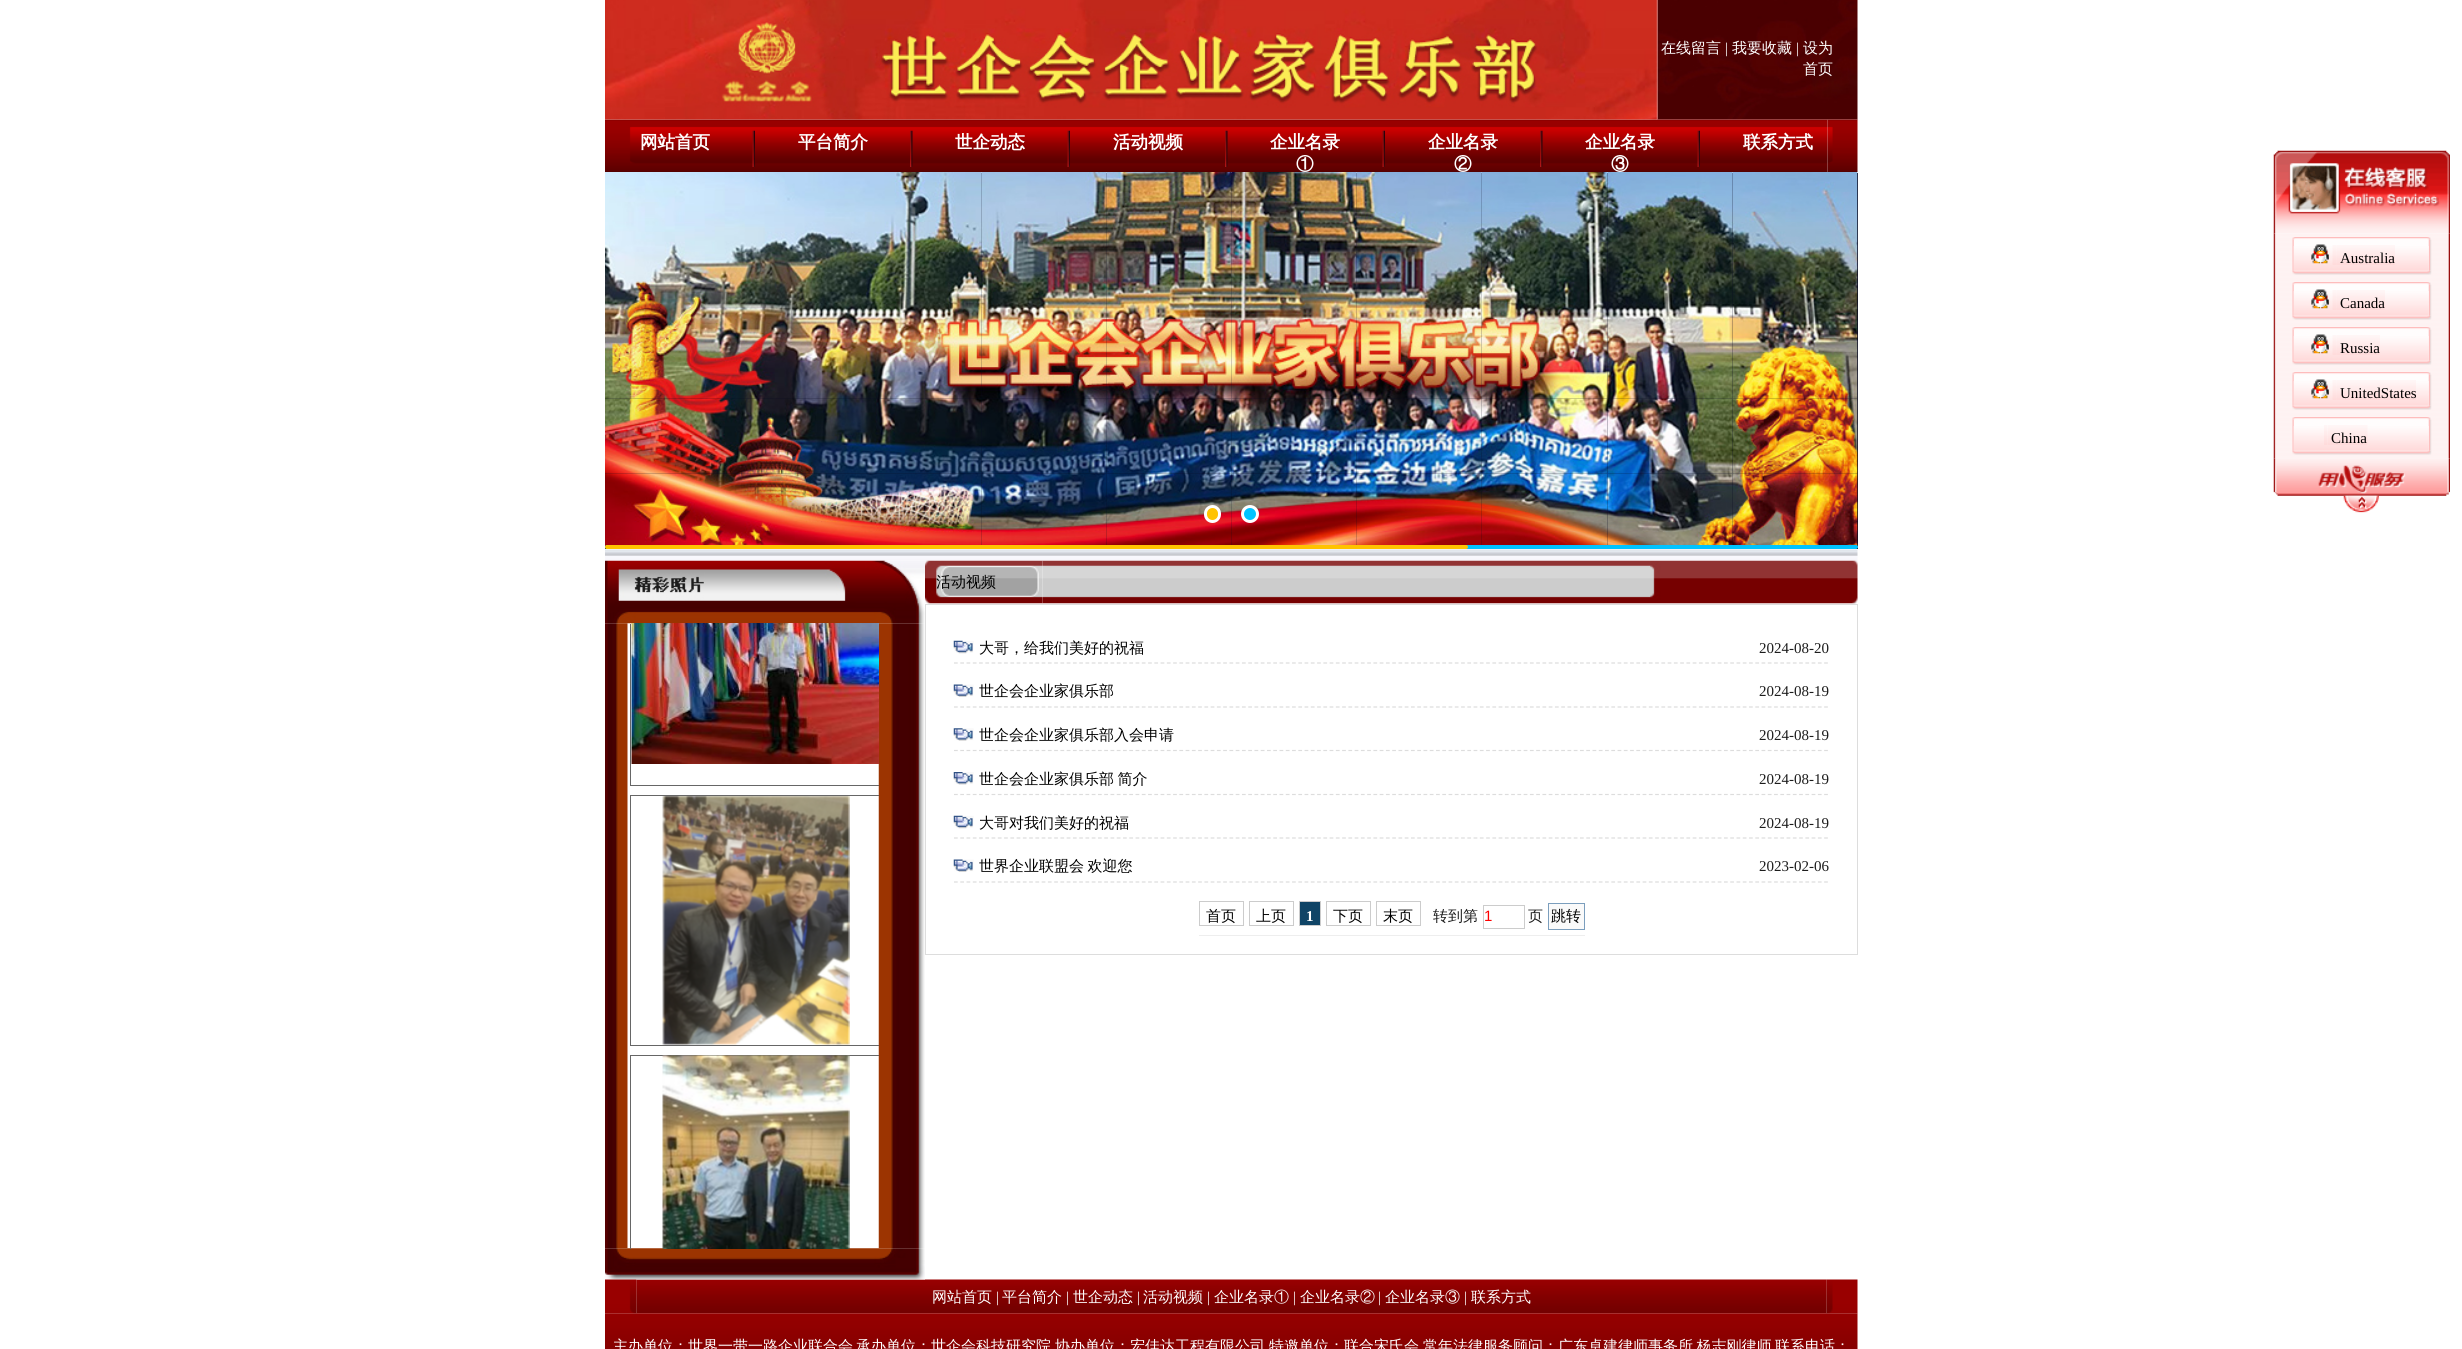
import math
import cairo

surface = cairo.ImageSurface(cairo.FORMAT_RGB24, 2462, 1349)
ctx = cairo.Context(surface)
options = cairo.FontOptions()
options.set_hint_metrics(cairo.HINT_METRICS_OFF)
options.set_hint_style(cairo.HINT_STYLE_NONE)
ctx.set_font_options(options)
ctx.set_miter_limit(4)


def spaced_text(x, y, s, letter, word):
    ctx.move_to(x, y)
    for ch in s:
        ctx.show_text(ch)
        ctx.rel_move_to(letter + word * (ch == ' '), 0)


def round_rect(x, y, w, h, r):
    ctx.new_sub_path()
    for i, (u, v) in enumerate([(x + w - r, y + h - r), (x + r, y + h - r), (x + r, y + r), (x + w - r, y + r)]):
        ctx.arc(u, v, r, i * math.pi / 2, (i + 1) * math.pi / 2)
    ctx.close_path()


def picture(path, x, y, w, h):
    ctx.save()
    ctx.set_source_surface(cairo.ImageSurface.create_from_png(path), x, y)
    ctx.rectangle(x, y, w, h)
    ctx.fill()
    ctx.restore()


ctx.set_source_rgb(1, 1, 1)
ctx.paint()
picture("img2.png", 1657, 0, 201, 120)
picture("img3.png", 605, 119, 30, 53)
picture("img4.png", 635, 119, 1193, 53)
picture("img1.png", 605, 0, 1053, 120)
ctx.select_font_face("WenQuanYi Zen Hei Medium")
ctx.set_font_size(15)
ctx.set_source_rgb(1, 1, 1)
ctx.move_to(1661, 53)
ctx.show_text("在线留言")
ctx.select_font_face("Liberation Serif")
ctx.move_to(1725, 53)
ctx.show_text("|")
ctx.select_font_face("WenQuanYi Zen Hei Medium")
ctx.move_to(1732, 53)
ctx.show_text("我要收藏")
ctx.select_font_face("Liberation Serif")
ctx.move_to(1796, 53)
ctx.show_text("|")
ctx.select_font_face("WenQuanYi Zen Hei Medium")
ctx.move_to(1803, 53)
ctx.show_text("设为")
ctx.move_to(1803, 74)
ctx.show_text("首页")
ctx.select_font_face("WenQuanYi Zen Hei", cairo.FONT_SLANT_NORMAL, cairo.FONT_WEIGHT_BOLD)
ctx.set_font_size(17.5)
ctx.move_to(640, 148)
ctx.show_text("网站首页")
picture("img5.png", 752, 130, 3, 37)
ctx.move_to(798, 148)
ctx.show_text("平台简介")
picture("img6.png", 910, 130, 3, 37)
ctx.move_to(955, 148)
ctx.show_text("世企动态")
picture("img5.png", 1067, 130, 3, 37)
ctx.move_to(1113, 148)
ctx.show_text("活动视频")
picture("img6.png", 1225, 130, 3, 37)
ctx.move_to(1270, 148)
ctx.show_text("企业名录")
ctx.move_to(1296, 170)
ctx.show_text("①")
picture("img5.png", 1382, 130, 3, 37)
ctx.move_to(1428, 148)
ctx.show_text("企业名录")
ctx.move_to(1454, 170)
ctx.show_text("②")
picture("img6.png", 1540, 130, 3, 37)
ctx.move_to(1585, 148)
ctx.show_text("企业名录")
ctx.move_to(1611, 170)
ctx.show_text("③")
picture("img5.png", 1697, 130, 3, 37)
ctx.move_to(1743, 148)
ctx.show_text("联系方式")
picture("img7.png", 1827, 119, 31, 53)
picture("img58.png", 605, 549, 1253, 12)
picture("img63.png", 878, 623, 47, 626)
picture("img59.png", 605, 623, 23, 626)
picture("img64.png", 605, 560, 320, 64)
ctx.save()
ctx.rectangle(629, 624, 250, 625)
ctx.clip()
ctx.rectangle(630.5, 535.5, 250, 250)
ctx.set_source_rgb(0.4, 0.4, 0.4)
ctx.set_line_width(1)
ctx.stroke()
ctx.restore()
ctx.set_source_rgb(0.035, 0.043, 0.133)
ctx.rectangle(605, 173, 1253, 376)
ctx.fill()
picture("img8.png", 605, 172, 125, 75)
picture("img9.png", 730, 172, 125, 75)
picture("img10.png", 855, 172, 127, 75)
picture("img11.png", 981, 172, 126, 75)
picture("img12.png", 1106, 172, 126, 75)
picture("img13.png", 1231, 172, 126, 75)
picture("img14.png", 1356, 172, 126, 75)
picture("img15.png", 1481, 172, 127, 75)
picture("img16.png", 1607, 172, 126, 75)
picture("img17.png", 1732, 172, 126, 75)
picture("img18.png", 605, 247, 125, 75)
picture("img19.png", 730, 247, 125, 75)
picture("img20.png", 855, 247, 127, 75)
picture("img21.png", 981, 247, 126, 75)
picture("img22.png", 1106, 247, 126, 75)
picture("img23.png", 1231, 247, 126, 75)
picture("img24.png", 1356, 247, 126, 75)
picture("img25.png", 1481, 247, 127, 75)
picture("img26.png", 1607, 247, 126, 75)
picture("img27.png", 1732, 247, 126, 75)
picture("img28.png", 605, 322, 125, 77)
picture("img29.png", 730, 322, 125, 77)
picture("img30.png", 855, 322, 127, 77)
picture("img31.png", 981, 322, 126, 77)
picture("img32.png", 1106, 322, 126, 77)
picture("img33.png", 1231, 322, 126, 77)
picture("img34.png", 1356, 322, 126, 77)
picture("img35.png", 1481, 322, 127, 77)
picture("img36.png", 1607, 322, 126, 77)
picture("img37.png", 1732, 322, 126, 77)
picture("img38.png", 605, 398, 125, 76)
picture("img39.png", 730, 398, 125, 76)
picture("img40.png", 855, 398, 127, 76)
picture("img41.png", 981, 398, 126, 76)
picture("img42.png", 1106, 398, 126, 76)
picture("img43.png", 1231, 398, 126, 76)
picture("img44.png", 1356, 398, 126, 76)
picture("img45.png", 1481, 398, 127, 76)
picture("img46.png", 1607, 398, 126, 76)
picture("img47.png", 1732, 398, 126, 76)
picture("img48.png", 605, 473, 125, 76)
picture("img49.png", 730, 473, 125, 72)
picture("img50.png", 855, 473, 127, 72)
picture("img51.png", 981, 473, 126, 72)
picture("img52.png", 1106, 473, 126, 72)
picture("img53.png", 1231, 473, 126, 72)
picture("img54.png", 1356, 473, 126, 72)
picture("img55.png", 1481, 473, 127, 72)
picture("img56.png", 1607, 473, 126, 72)
picture("img57.png", 1732, 473, 126, 76)
ctx.set_source_rgb(1, 0.765, 0)
round_rect(1205.5, 506.5, 14, 15, 7)
ctx.fill_preserve()
ctx.set_source_rgb(1, 1, 1)
ctx.set_line_width(3)
ctx.stroke()
ctx.set_source_rgb(0, 0.765, 1)
ctx.arc(1250, 514, 7.5, 0, 2 * math.pi)
ctx.fill_preserve()
ctx.set_source_rgb(1, 1, 1)
ctx.stroke()
ctx.set_source_rgb(0, 0.765, 1)
round_rect(605, 545, 1253, 4, 2)
ctx.fill()
ctx.set_source_rgb(1, 0.765, 0)
round_rect(605, 545, 863, 4, 2)
ctx.fill()
picture("img60.png", 631, 623, 248, 141)
ctx.save()
ctx.rectangle(629, 624, 250, 625)
ctx.clip()
ctx.rectangle(630.5, 795.5, 250, 250)
ctx.set_source_rgb(0.4, 0.4, 0.4)
ctx.set_line_width(1)
ctx.stroke()
ctx.restore()
picture("img61.png", 662, 796, 188, 249)
picture("img74.png", 636, 1279, 1191, 35)
picture("img65.png", 605, 1248, 320, 32)
picture("img76.png", 605, 1313, 1253, 36)
picture("img73.png", 605, 1279, 32, 35)
ctx.save()
ctx.rectangle(629, 624, 250, 625)
ctx.clip()
ctx.rectangle(630.5, 1055.5, 250, 250)
ctx.set_source_rgb(0.4, 0.4, 0.4)
ctx.set_line_width(1)
ctx.stroke()
ctx.restore()
picture("img62.png", 662, 1055, 188, 194)
picture("img66.png", 925, 560, 118, 44)
ctx.select_font_face("WenQuanYi Zen Hei Medium")
ctx.set_font_size(15)
ctx.set_source_rgb(0, 0, 0)
ctx.move_to(936, 587)
ctx.show_text("活动视频")
picture("img67.png", 1042, 560, 608, 44)
picture("img68.png", 1650, 560, 208, 44)
ctx.rectangle(925.5, 604.5, 932, 350)
ctx.set_source_rgb(0.867, 0.867, 0.867)
ctx.set_line_width(1)
ctx.stroke()
picture("img69.png", 953, 640, 21, 14)
ctx.new_path()
ctx.move_to(954, 663)
ctx.line_to(1829, 663)
ctx.set_line_width(1.2)
ctx.set_dash([3.75, 2.51])
ctx.stroke()
ctx.set_source_rgb(0, 0, 0)
ctx.move_to(979, 653)
ctx.show_text("大哥，给我们美好的祝福")
ctx.select_font_face("Liberation Serif")
ctx.set_source_rgb(0.11, 0.11, 0.11)
ctx.move_to(1759, 653)
ctx.show_text("2024-08-20")
picture("img70.png", 953, 684, 21, 13)
ctx.new_path()
ctx.move_to(954, 707)
ctx.line_to(1829, 707)
ctx.set_source_rgb(0.867, 0.867, 0.867)
ctx.stroke()
ctx.select_font_face("WenQuanYi Zen Hei Medium")
ctx.set_source_rgb(0, 0, 0)
ctx.move_to(979, 696)
ctx.show_text("世企会企业家俱乐部")
ctx.select_font_face("Liberation Serif")
ctx.set_source_rgb(0.11, 0.11, 0.11)
ctx.move_to(1759, 696)
ctx.show_text("2024-08-19")
picture("img71.png", 953, 728, 21, 13)
ctx.new_path()
ctx.move_to(954, 750.5)
ctx.line_to(1829, 750.5)
ctx.set_source_rgb(0.867, 0.867, 0.867)
ctx.stroke()
ctx.select_font_face("WenQuanYi Zen Hei Medium")
ctx.set_source_rgb(0, 0, 0)
ctx.move_to(979, 740)
ctx.show_text("世企会企业家俱乐部入会申请")
ctx.select_font_face("Liberation Serif")
ctx.set_source_rgb(0.11, 0.11, 0.11)
ctx.move_to(1759, 740)
ctx.show_text("2024-08-19")
picture("img72.png", 953, 772, 21, 13)
ctx.new_path()
ctx.move_to(954, 794.5)
ctx.line_to(1829, 794.5)
ctx.set_source_rgb(0.867, 0.867, 0.867)
ctx.stroke()
ctx.select_font_face("WenQuanYi Zen Hei Medium")
ctx.set_source_rgb(0, 0, 0)
spaced_text(979, 784, "世企会企业家俱乐部 简介", 0, -1)
ctx.select_font_face("Liberation Serif")
ctx.set_source_rgb(0.11, 0.11, 0.11)
ctx.move_to(1759, 784)
ctx.show_text("2024-08-19")
picture("img69.png", 953, 815, 21, 14)
ctx.new_path()
ctx.move_to(954, 838)
ctx.line_to(1829, 838)
ctx.set_source_rgb(0.867, 0.867, 0.867)
ctx.stroke()
ctx.select_font_face("WenQuanYi Zen Hei Medium")
ctx.set_source_rgb(0, 0, 0)
ctx.move_to(979, 828)
ctx.show_text("大哥对我们美好的祝福")
ctx.select_font_face("Liberation Serif")
ctx.set_source_rgb(0.11, 0.11, 0.11)
ctx.move_to(1759, 828)
ctx.show_text("2024-08-19")
picture("img70.png", 953, 859, 21, 13)
ctx.new_path()
ctx.move_to(954, 882)
ctx.line_to(1829, 882)
ctx.set_source_rgb(0.867, 0.867, 0.867)
ctx.stroke()
ctx.select_font_face("WenQuanYi Zen Hei Medium")
ctx.set_source_rgb(0, 0, 0)
spaced_text(979, 871, "世界企业联盟会 欢迎您", 0, -1)
ctx.select_font_face("Liberation Serif")
ctx.set_source_rgb(0.11, 0.11, 0.11)
ctx.move_to(1759, 871)
ctx.show_text("2023-02-06")
ctx.set_source_rgb(0.933, 0.933, 0.933)
ctx.rectangle(1199, 935, 386, 1)
ctx.fill()
ctx.rectangle(1199.5, 901.5, 44, 24)
ctx.set_source_rgb(0.8, 0.8, 0.8)
ctx.set_line_width(1)
ctx.set_dash([])
ctx.stroke()
ctx.select_font_face("WenQuanYi Zen Hei Medium")
ctx.set_source_rgb(0, 0, 0)
ctx.move_to(1206, 921)
ctx.show_text("首页")
ctx.rectangle(1249.5, 901.5, 44, 24)
ctx.set_source_rgb(0.8, 0.8, 0.8)
ctx.stroke()
ctx.set_source_rgb(0, 0, 0)
ctx.move_to(1256, 921)
ctx.show_text("上页")
ctx.set_source_rgb(0.059, 0.267, 0.4)
ctx.rectangle(1299.5, 901.5, 21, 24)
ctx.fill_preserve()
ctx.set_source_rgb(0.8, 0.8, 0.8)
ctx.stroke()
ctx.select_font_face("Liberation Serif", cairo.FONT_SLANT_NORMAL, cairo.FONT_WEIGHT_BOLD)
ctx.set_source_rgb(1, 1, 1)
ctx.move_to(1306, 921)
ctx.show_text("1")
ctx.rectangle(1326.5, 901.5, 44, 24)
ctx.set_source_rgb(0.8, 0.8, 0.8)
ctx.stroke()
ctx.select_font_face("WenQuanYi Zen Hei Medium")
ctx.set_source_rgb(0, 0, 0)
ctx.move_to(1333, 921)
ctx.show_text("下页")
ctx.rectangle(1376.5, 901.5, 44, 24)
ctx.set_source_rgb(0.8, 0.8, 0.8)
ctx.stroke()
ctx.set_source_rgb(0, 0, 0)
ctx.move_to(1383, 921)
ctx.show_text("末页")
ctx.set_source_rgb(0.11, 0.11, 0.11)
ctx.move_to(1433, 921)
ctx.show_text("转到第")
ctx.rectangle(1483.5, 905.5, 41, 23)
ctx.set_source_rgb(0.8, 0.8, 0.8)
ctx.stroke()
ctx.select_font_face("Liberation Sans")
ctx.set_source_rgb(1, 0, 0)
ctx.move_to(1484, 921)
ctx.show_text("1")
ctx.select_font_face("WenQuanYi Zen Hei Medium")
ctx.set_source_rgb(0.11, 0.11, 0.11)
ctx.move_to(1528, 921)
ctx.show_text("页")
ctx.set_source_rgb(0.98, 0.98, 0.98)
ctx.rectangle(1548.5, 903.5, 36, 26)
ctx.fill_preserve()
ctx.set_source_rgb(0.482, 0.62, 0.741)
ctx.stroke()
ctx.set_source_rgb(0, 0, 0)
ctx.move_to(1551, 921)
ctx.show_text("跳转")
ctx.set_source_rgb(1, 1, 1)
ctx.move_to(932, 1302)
ctx.show_text("网站首页")
ctx.select_font_face("Liberation Serif")
ctx.move_to(996, 1302)
ctx.show_text("|")
ctx.select_font_face("WenQuanYi Zen Hei Medium")
ctx.move_to(1002, 1302)
ctx.show_text("平台简介")
ctx.select_font_face("Liberation Serif")
ctx.move_to(1066, 1302)
ctx.show_text("|")
ctx.select_font_face("WenQuanYi Zen Hei Medium")
ctx.move_to(1073, 1302)
ctx.show_text("世企动态")
ctx.select_font_face("Liberation Serif")
ctx.move_to(1137, 1302)
ctx.show_text("|")
ctx.select_font_face("WenQuanYi Zen Hei Medium")
ctx.move_to(1143, 1302)
ctx.show_text("活动视频")
ctx.select_font_face("Liberation Serif")
ctx.move_to(1207, 1302)
ctx.show_text("|")
ctx.select_font_face("WenQuanYi Zen Hei Medium")
ctx.move_to(1214, 1302)
ctx.show_text("企业名录①")
ctx.select_font_face("Liberation Serif")
ctx.move_to(1293, 1302)
ctx.show_text("|")
ctx.select_font_face("WenQuanYi Zen Hei Medium")
ctx.move_to(1300, 1302)
ctx.show_text("企业名录②")
ctx.select_font_face("Liberation Serif")
ctx.move_to(1378, 1302)
ctx.show_text("|")
ctx.select_font_face("WenQuanYi Zen Hei Medium")
ctx.move_to(1385, 1302)
ctx.show_text("企业名录③")
ctx.select_font_face("Liberation Serif")
ctx.move_to(1464, 1302)
ctx.show_text("|")
ctx.select_font_face("WenQuanYi Zen Hei Medium")
ctx.move_to(1471, 1302)
ctx.show_text("联系方式")
picture("img75.png", 1826, 1279, 32, 35)
ctx.move_to(613, 1351)
ctx.show_text("主办单位：世界一带一路企业联合会")
ctx.move_to(856, 1351)
ctx.show_text("承办单位：世企会科技研究院")
ctx.move_to(1055, 1351)
ctx.show_text("协办单位：宏佳达工程有限公司")
ctx.move_to(1269, 1351)
ctx.show_text("特邀单位：联合宋氏会")
spaced_text(1423, 1351, "常年法律服务顾问：广东卓建律师事务所 杨志刚律师 联系电话：", 0, -1)
picture("img77.png", 2273, 150, 177, 84)
picture("img78.png", 2273, 233, 177, 226)
picture("img79.png", 2292, 237, 139, 3)
picture("img80.png", 2292, 239, 140, 32)
picture("img85.png", 2292, 270, 140, 5)
picture("img81.png", 2293, 246, 136, 25)
picture("img82.png", 2332, 245, 4, 20)
picture("img83.png", 2311, 244, 18, 20)
picture("img84.png", 2336, 245, 59, 20)
ctx.select_font_face("Liberation Serif")
ctx.set_source_rgb(0, 0, 0)
ctx.move_to(2340, 263)
ctx.show_text("Australia")
picture("img79.png", 2292, 282, 139, 3)
picture("img80.png", 2292, 284, 140, 32)
picture("img85.png", 2292, 315, 140, 5)
picture("img81.png", 2293, 291, 136, 25)
picture("img82.png", 2332, 290, 4, 20)
picture("img86.png", 2311, 289, 18, 20)
picture("img87.png", 2336, 290, 49, 20)
ctx.move_to(2340, 308)
ctx.show_text("Canada")
picture("img79.png", 2292, 327, 139, 3)
picture("img80.png", 2292, 329, 140, 32)
picture("img85.png", 2292, 360, 140, 5)
picture("img81.png", 2293, 336, 136, 25)
picture("img82.png", 2332, 335, 4, 20)
picture("img83.png", 2311, 334, 18, 20)
picture("img88.png", 2336, 335, 44, 20)
ctx.move_to(2340, 353)
ctx.show_text("Russia")
picture("img79.png", 2292, 372, 139, 3)
picture("img80.png", 2292, 374, 140, 32)
picture("img85.png", 2292, 405, 140, 5)
picture("img81.png", 2293, 381, 136, 25)
picture("img82.png", 2332, 380, 4, 20)
picture("img83.png", 2311, 379, 18, 20)
picture("img89.png", 2336, 380, 80, 20)
ctx.move_to(2340, 398)
ctx.show_text("UnitedStates")
picture("img79.png", 2292, 417, 139, 3)
picture("img80.png", 2292, 419, 140, 32)
picture("img85.png", 2292, 450, 140, 5)
picture("img81.png", 2293, 426, 136, 25)
picture("img90.png", 2324, 425, 4, 20)
picture("img91.png", 2328, 425, 40, 20)
ctx.move_to(2331, 443)
ctx.show_text("China")
picture("img92.png", 2273, 458, 177, 38)
picture("img93.png", 2343, 495, 36, 18)
surface.write_to_png("page.png")
